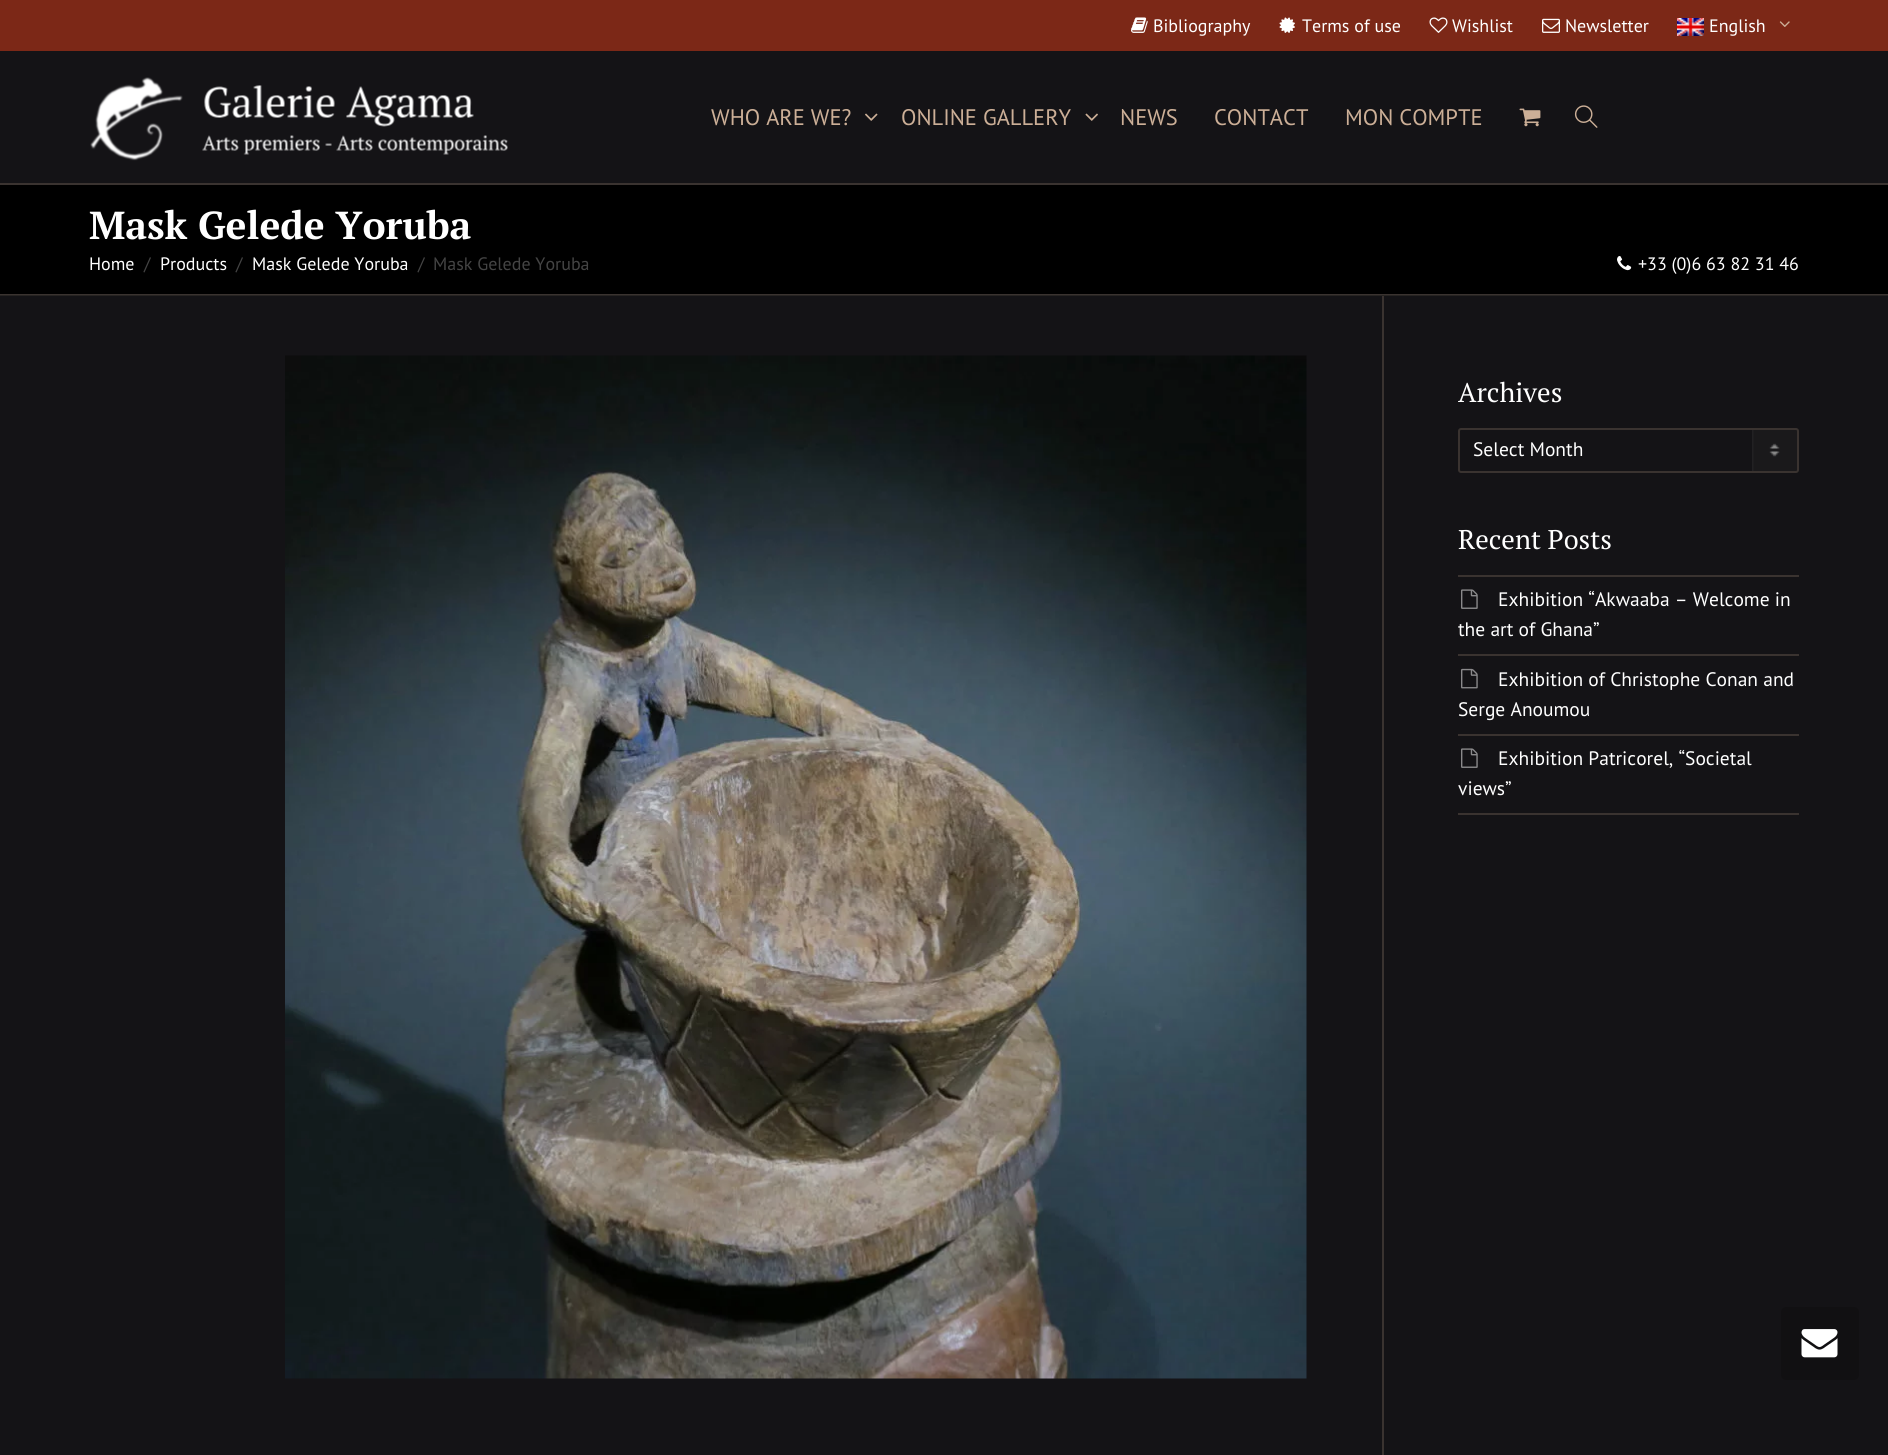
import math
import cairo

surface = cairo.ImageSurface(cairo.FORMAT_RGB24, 1888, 1455)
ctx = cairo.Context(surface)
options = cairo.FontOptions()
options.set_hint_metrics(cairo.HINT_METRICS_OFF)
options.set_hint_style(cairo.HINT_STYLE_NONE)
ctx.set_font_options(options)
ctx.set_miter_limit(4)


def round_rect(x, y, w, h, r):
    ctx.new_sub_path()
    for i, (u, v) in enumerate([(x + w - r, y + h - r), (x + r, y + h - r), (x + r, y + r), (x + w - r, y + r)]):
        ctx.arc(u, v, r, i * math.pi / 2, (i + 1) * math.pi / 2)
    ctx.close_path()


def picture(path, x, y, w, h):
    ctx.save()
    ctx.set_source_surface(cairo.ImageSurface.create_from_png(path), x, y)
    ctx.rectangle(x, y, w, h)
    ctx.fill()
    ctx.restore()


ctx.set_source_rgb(0.082, 0.078, 0.086)
ctx.paint()
ctx.set_source_rgb(0.486, 0.157, 0.09)
ctx.rectangle(0, 0, 1888, 51)
ctx.fill()
picture("img1.png", 1131, 17, 17, 16)
ctx.select_font_face("PT Sans")
ctx.set_font_size(18)
ctx.set_source_rgb(1, 1, 1)
ctx.move_to(1153, 32)
ctx.show_text("Bibliography")
picture("img2.png", 1279, 17, 16, 16)
ctx.move_to(1302, 32)
ctx.show_text("Terms of use")
picture("img3.png", 1429, 17, 19, 16)
ctx.move_to(1452, 32)
ctx.show_text("Wishlist")
picture("img4.png", 1542, 18, 18, 15)
ctx.move_to(1565, 32)
ctx.show_text("Newsletter")
picture("img5.png", 1677, 18, 27, 18)
ctx.move_to(1709, 32)
ctx.show_text("English")
picture("img6.png", 1779, 21, 11, 6)
ctx.set_source_rgb(0.227, 0.2, 0.188)
ctx.rectangle(0, 183, 1888, 2)
ctx.fill()
picture("img7.png", 90, 77, 418, 84)
ctx.set_font_size(22.5)
ctx.set_source_rgb(0.8, 0.686, 0.592)
ctx.move_to(711, 125)
ctx.show_text("WHO ARE WE?")
picture("img8.png", 865, 113, 13, 8)
ctx.move_to(901, 125)
ctx.show_text("ONLINE GALLERY")
picture("img9.png", 1085, 113, 13, 8)
ctx.move_to(1120, 125)
ctx.show_text("NEWS")
ctx.move_to(1214, 125)
ctx.show_text("CONTACT")
ctx.move_to(1345, 125)
ctx.show_text("MON COMPTE")
picture("img10.png", 1519, 108, 22, 19)
picture("img11.png", 1574, 105, 24, 23)
ctx.set_source_rgb(0, 0, 0)
ctx.rectangle(0, 185, 1888, 109)
ctx.fill()
ctx.set_source_rgb(0.227, 0.2, 0.188)
ctx.rectangle(0, 294, 1888, 1)
ctx.fill()
ctx.select_font_face("PT Serif", cairo.FONT_SLANT_NORMAL, cairo.FONT_WEIGHT_BOLD)
ctx.set_font_size(39)
ctx.set_source_rgb(1, 1, 1)
ctx.move_to(89, 239)
ctx.show_text("Mask Gelede Yoruba")
ctx.select_font_face("PT Sans")
ctx.set_font_size(18)
ctx.move_to(89, 270)
ctx.show_text("Home")
ctx.set_source_rgb(0.267, 0.267, 0.267)
ctx.move_to(144, 270)
ctx.show_text("/")
ctx.set_source_rgb(1, 1, 1)
ctx.move_to(160, 270)
ctx.show_text("Products")
ctx.set_source_rgb(0.267, 0.267, 0.267)
ctx.move_to(236, 270)
ctx.show_text("/")
ctx.set_source_rgb(1, 1, 1)
ctx.move_to(252, 270)
ctx.show_text("Mask Gelede Yoruba")
ctx.set_source_rgb(0.267, 0.267, 0.267)
ctx.move_to(418, 270)
ctx.show_text("/")
ctx.move_to(433, 270)
ctx.show_text("Mask Gelede Yoruba")
picture("img12.png", 1617, 256, 15, 15)
ctx.set_source_rgb(1, 1, 1)
ctx.move_to(1638, 270)
ctx.show_text("+33 (0)6 63 82 31 46")
ctx.set_source_rgb(0.153, 0.141, 0.133)
ctx.rectangle(0, 295, 1888, 1)
ctx.fill()
ctx.set_source_rgb(0.227, 0.2, 0.188)
ctx.rectangle(1382, 296, 2, 1159)
ctx.fill()
picture("img13.png", 285, 355, 1022, 1024)
ctx.select_font_face("PT Serif")
ctx.set_font_size(27)
ctx.set_source_rgb(1, 1, 1)
ctx.move_to(1458, 402)
ctx.show_text("Archives")
picture("img14.png", 1752, 428, 45, 43)
round_rect(1459, 429, 339, 43, 2)
ctx.set_source_rgb(0.227, 0.2, 0.188)
ctx.stroke()
ctx.select_font_face("PT Sans")
ctx.set_font_size(19.5)
ctx.set_source_rgb(1, 1, 1)
ctx.move_to(1473, 456)
ctx.show_text("Select Month")
ctx.select_font_face("PT Serif")
ctx.set_font_size(27)
ctx.move_to(1458, 549)
ctx.show_text("Recent Posts")
ctx.set_source_rgb(0.227, 0.2, 0.188)
ctx.rectangle(1458, 575, 341, 2)
ctx.fill()
ctx.rectangle(1458, 654, 341, 2)
ctx.fill()
picture("img15.png", 1461, 589, 17, 20)
ctx.select_font_face("PT Sans")
ctx.set_font_size(19.5)
ctx.set_source_rgb(1, 1, 1)
ctx.move_to(1498, 606)
ctx.show_text("Exhibition “Akwaaba – Welcome in")
ctx.move_to(1458, 636)
ctx.show_text("the art of Ghana”")
ctx.set_source_rgb(0.227, 0.2, 0.188)
ctx.rectangle(1458, 734, 341, 2)
ctx.fill()
picture("img16.png", 1461, 668, 17, 21)
ctx.set_source_rgb(1, 1, 1)
ctx.move_to(1498, 686)
ctx.show_text("Exhibition of Christophe Conan and")
ctx.move_to(1458, 716)
ctx.show_text("Serge Anoumou")
ctx.set_source_rgb(0.227, 0.2, 0.188)
ctx.rectangle(1458, 813, 341, 2)
ctx.fill()
picture("img15.png", 1461, 748, 17, 20)
ctx.set_source_rgb(1, 1, 1)
ctx.move_to(1498, 765)
ctx.show_text("Exhibition Patricorel, “Societal")
ctx.move_to(1458, 795)
ctx.show_text("views”")
ctx.set_source_rgb(0.067, 0.063, 0.071)
round_rect(1781, 1307, 78, 73, 5)
ctx.fill()
picture("img17.png", 1801, 1329, 37, 29)
surface.write_to_png("page.png")
